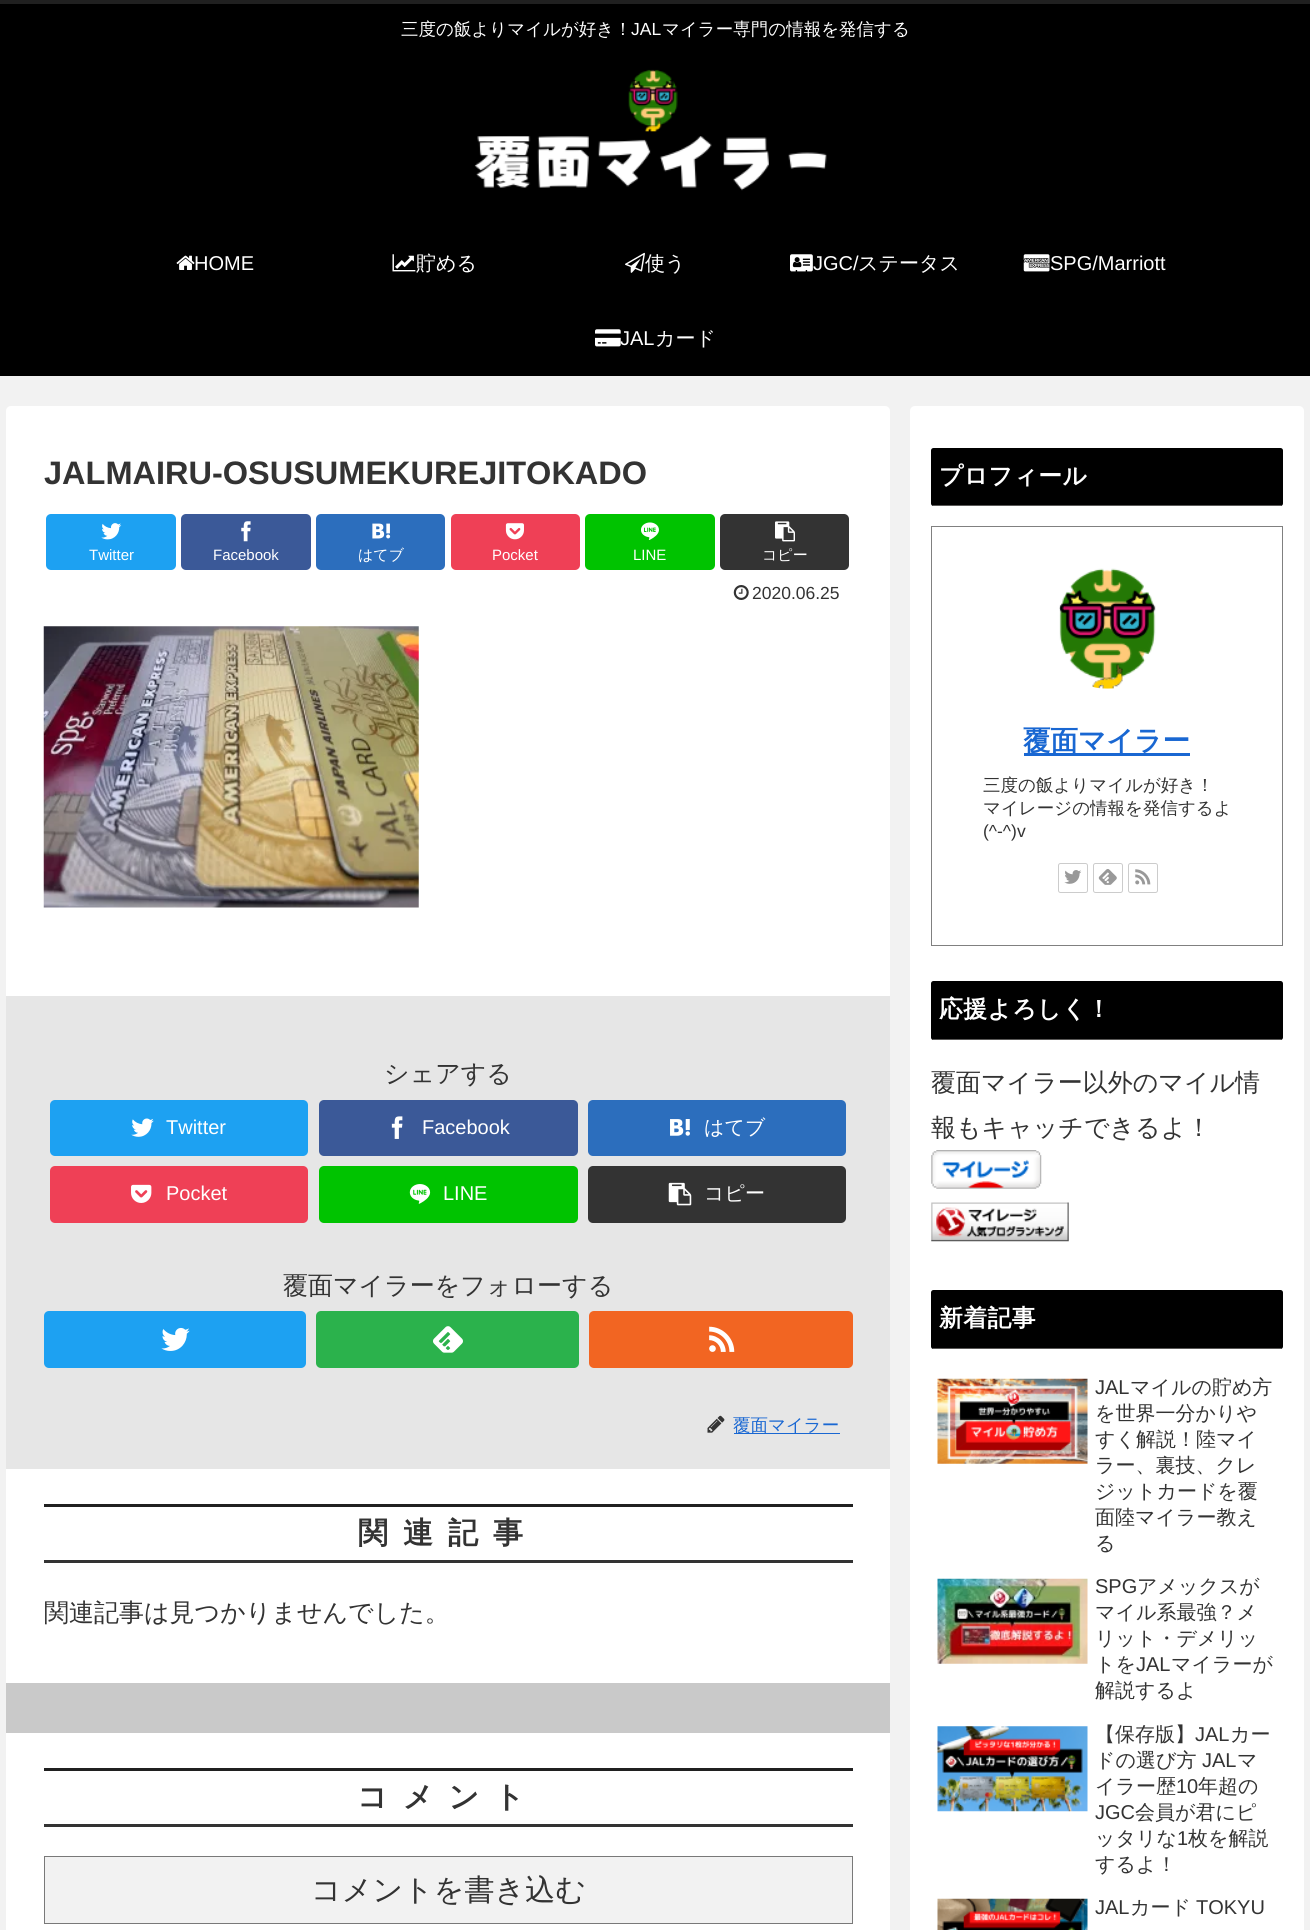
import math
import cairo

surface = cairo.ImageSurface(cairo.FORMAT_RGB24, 1310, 1930)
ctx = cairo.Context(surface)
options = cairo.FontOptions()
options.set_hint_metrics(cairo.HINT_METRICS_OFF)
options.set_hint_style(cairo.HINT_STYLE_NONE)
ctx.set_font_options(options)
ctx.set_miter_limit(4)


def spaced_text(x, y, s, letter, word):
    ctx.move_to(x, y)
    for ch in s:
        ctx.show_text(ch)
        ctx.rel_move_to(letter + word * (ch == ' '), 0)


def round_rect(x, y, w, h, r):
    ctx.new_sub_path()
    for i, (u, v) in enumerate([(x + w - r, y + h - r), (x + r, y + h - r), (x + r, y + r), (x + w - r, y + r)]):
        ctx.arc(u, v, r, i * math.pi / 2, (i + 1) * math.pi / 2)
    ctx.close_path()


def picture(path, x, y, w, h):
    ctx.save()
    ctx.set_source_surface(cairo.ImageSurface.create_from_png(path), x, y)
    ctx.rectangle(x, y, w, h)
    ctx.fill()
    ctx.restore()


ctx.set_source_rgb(0.949, 0.949, 0.949)
ctx.paint()
ctx.set_source_rgb(0, 0, 0)
ctx.rectangle(0, 4, 1310, 372)
ctx.fill()
ctx.set_source_rgb(0.125, 0.125, 0.125)
ctx.rectangle(0, 0, 1310, 4)
ctx.fill()
ctx.select_font_face("WenQuanYi Zen Hei Medium")
ctx.set_font_size(17.5)
ctx.set_source_rgb(1, 1, 1)
ctx.move_to(401, 35)
ctx.show_text("三度の飯よりマイルが好き！")
ctx.select_font_face("Liberation Sans")
ctx.move_to(631, 35)
ctx.show_text("JAL")
ctx.select_font_face("WenQuanYi Zen Hei Medium")
ctx.move_to(662, 35)
ctx.show_text("マイラー専門の情報を発信する")
picture("img1.png", 474, 69, 353, 122)
picture("img2.png", 176, 255, 19, 15)
ctx.select_font_face("Liberation Sans")
ctx.set_font_size(20)
ctx.move_to(194, 270)
ctx.show_text("HOME")
picture("img3.png", 392, 254, 24, 18)
ctx.select_font_face("WenQuanYi Zen Hei Medium")
ctx.move_to(416, 270)
ctx.show_text("貯める")
picture("img4.png", 625, 252, 20, 21)
ctx.move_to(645, 270)
ctx.show_text("使う")
picture("img5.png", 790, 254, 23, 18)
ctx.select_font_face("Liberation Sans")
ctx.move_to(813, 270)
ctx.show_text("JGC/")
ctx.select_font_face("WenQuanYi Zen Hei Medium")
ctx.move_to(858, 270)
ctx.show_text("ステータス")
picture("img6.png", 1023, 254, 27, 18)
ctx.select_font_face("Liberation Sans")
ctx.move_to(1050, 270)
ctx.show_text("SPG/Marriott")
picture("img7.png", 595, 329, 26, 18)
ctx.move_to(620, 345)
ctx.show_text("JAL")
ctx.select_font_face("WenQuanYi Zen Hei Medium")
ctx.move_to(655, 345)
ctx.show_text("カード")
round_rect(6, 406, 884, 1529, 5)
ctx.fill()
ctx.select_font_face("Liberation Sans", cairo.FONT_SLANT_NORMAL, cairo.FONT_WEIGHT_BOLD)
ctx.set_font_size(32.5)
ctx.set_source_rgb(0.2, 0.2, 0.2)
ctx.move_to(44, 484)
ctx.show_text("JALMAIRU-OSUSUMEKUREJITOKADO")
ctx.set_source_rgb(0.114, 0.631, 0.949)
round_rect(46, 514, 130, 56, 5)
ctx.fill()
picture("img8.png", 101, 523, 21, 17)
ctx.select_font_face("Liberation Sans")
ctx.set_font_size(15)
ctx.set_source_rgb(1, 1, 1)
ctx.move_to(89, 560)
ctx.show_text("Twitter")
ctx.set_source_rgb(0.231, 0.349, 0.596)
round_rect(181, 514, 130, 56, 5)
ctx.fill()
picture("img9.png", 241, 521, 10, 21)
ctx.set_source_rgb(1, 1, 1)
ctx.move_to(213, 560)
ctx.show_text("Facebook")
ctx.set_source_rgb(0.173, 0.431, 0.741)
round_rect(316, 514, 129, 56, 5)
ctx.fill()
picture("img10.png", 372, 523, 19, 16)
ctx.select_font_face("WenQuanYi Zen Hei Medium")
ctx.set_source_rgb(1, 1, 1)
ctx.move_to(358, 560)
ctx.show_text("はてブ")
ctx.set_source_rgb(0.937, 0.251, 0.337)
round_rect(451, 514, 129, 56, 5)
ctx.fill()
picture("img11.png", 505, 523, 19, 17)
ctx.select_font_face("Liberation Sans")
ctx.set_source_rgb(1, 1, 1)
ctx.move_to(492, 560)
ctx.show_text("Pocket")
ctx.set_source_rgb(0, 0.765, 0)
round_rect(585, 514, 130, 56, 5)
ctx.fill()
picture("img12.png", 641, 522, 18, 18)
ctx.set_source_rgb(1, 1, 1)
ctx.move_to(633, 560)
ctx.show_text("LINE")
ctx.set_source_rgb(0.2, 0.2, 0.2)
round_rect(720, 514, 129, 56, 5)
ctx.fill()
picture("img13.png", 775, 521, 20, 21)
ctx.select_font_face("WenQuanYi Zen Hei Medium")
ctx.set_source_rgb(1, 1, 1)
ctx.move_to(762, 560)
ctx.show_text("コピー")
picture("img14.png", 733, 585, 16, 15)
ctx.select_font_face("Liberation Sans")
ctx.set_font_size(17.5)
ctx.set_source_rgb(0.2, 0.2, 0.2)
ctx.move_to(752, 599)
ctx.show_text("2020.06.25")
picture("img15.png", 43, 626, 376, 282)
ctx.set_source_rgb(0.902, 0.902, 0.902)
ctx.rectangle(6, 996, 884, 473)
ctx.fill()
ctx.select_font_face("WenQuanYi Zen Hei Medium")
ctx.set_font_size(25)
ctx.set_source_rgb(0.2, 0.2, 0.2)
ctx.move_to(384, 1082)
ctx.show_text("シェアする")
ctx.set_source_rgb(0.114, 0.631, 0.949)
round_rect(50, 1100, 258, 56, 5)
ctx.fill()
picture("img16.png", 131, 1118, 23, 19)
ctx.select_font_face("Liberation Sans")
ctx.set_font_size(20)
ctx.set_source_rgb(1, 1, 1)
ctx.move_to(166, 1134)
ctx.show_text("Twitter")
ctx.set_source_rgb(0.231, 0.349, 0.596)
round_rect(319, 1100, 259, 56, 5)
ctx.fill()
picture("img17.png", 391, 1116, 12, 23)
ctx.set_source_rgb(1, 1, 1)
ctx.move_to(422, 1134)
ctx.show_text("Facebook")
ctx.set_source_rgb(0.173, 0.431, 0.741)
round_rect(588, 1100, 258, 56, 5)
ctx.fill()
picture("img18.png", 670, 1119, 20, 17)
ctx.select_font_face("WenQuanYi Zen Hei Medium")
ctx.set_source_rgb(1, 1, 1)
ctx.move_to(704, 1134)
ctx.show_text("はてブ")
ctx.set_source_rgb(0.937, 0.251, 0.337)
round_rect(50, 1166, 258, 57, 5)
ctx.fill()
picture("img19.png", 131, 1184, 21, 19)
ctx.select_font_face("Liberation Sans")
ctx.set_source_rgb(1, 1, 1)
ctx.move_to(166, 1200)
ctx.show_text("Pocket")
ctx.set_source_rgb(0, 0.765, 0)
round_rect(319, 1166, 259, 57, 5)
ctx.fill()
picture("img20.png", 409, 1184, 22, 20)
ctx.set_source_rgb(1, 1, 1)
ctx.move_to(443, 1200)
ctx.show_text("LINE")
ctx.set_source_rgb(0.2, 0.2, 0.2)
round_rect(588, 1166, 258, 57, 5)
ctx.fill()
picture("img21.png", 668, 1182, 24, 24)
ctx.select_font_face("WenQuanYi Zen Hei Medium")
ctx.set_source_rgb(1, 1, 1)
ctx.move_to(704, 1200)
ctx.show_text("コピー")
ctx.set_font_size(25)
ctx.set_source_rgb(0.2, 0.2, 0.2)
ctx.move_to(283, 1294)
ctx.show_text("覆面マイラーをフォローする")
ctx.set_source_rgb(0.114, 0.631, 0.949)
round_rect(44, 1311, 262, 57, 5)
ctx.fill()
picture("img22.png", 161, 1327, 29, 24)
ctx.set_source_rgb(0.169, 0.698, 0.298)
round_rect(316, 1311, 263, 57, 5)
ctx.fill()
picture("img23.png", 433, 1326, 30, 27)
ctx.set_source_rgb(0.949, 0.396, 0.133)
round_rect(589, 1311, 264, 57, 5)
ctx.fill()
picture("img24.png", 709, 1326, 26, 26)
picture("img25.png", 707, 1415, 18, 18)
ctx.set_source_rgb(0.098, 0.404, 0.824)
ctx.rectangle(734, 1433, 106, 1)
ctx.fill()
ctx.set_font_size(17.5)
ctx.move_to(733, 1431)
ctx.show_text("覆面マイラー")
ctx.set_source_rgb(0.125, 0.125, 0.125)
ctx.rectangle(44, 1504, 809, 3)
ctx.fill()
ctx.set_source_rgb(0.2, 0.2, 0.2)
ctx.rectangle(44, 1560, 809, 3)
ctx.fill()
ctx.select_font_face("WenQuanYi Zen Hei", cairo.FONT_SLANT_NORMAL, cairo.FONT_WEIGHT_BOLD)
ctx.set_font_size(30)
spaced_text(358, 1543, "関連記事", 15, 0)
ctx.select_font_face("WenQuanYi Zen Hei Medium")
ctx.set_font_size(25)
ctx.move_to(44, 1621)
ctx.show_text("関連記事は見つかりませんでした。")
ctx.set_source_rgb(0.788, 0.788, 0.788)
ctx.rectangle(6, 1683, 884, 50)
ctx.fill()
ctx.set_source_rgb(0.125, 0.125, 0.125)
ctx.rectangle(44, 1768, 809, 3)
ctx.fill()
ctx.set_source_rgb(0.2, 0.2, 0.2)
ctx.rectangle(44, 1824, 809, 3)
ctx.fill()
ctx.select_font_face("WenQuanYi Zen Hei", cairo.FONT_SLANT_NORMAL, cairo.FONT_WEIGHT_BOLD)
ctx.set_font_size(30)
spaced_text(357, 1807, "コメント", 15, 0)
ctx.set_source_rgb(0.949, 0.949, 0.949)
ctx.rectangle(44.5, 1856.5, 808, 67)
ctx.fill_preserve()
ctx.set_source_rgb(0.475, 0.475, 0.475)
ctx.set_line_width(1)
ctx.stroke()
ctx.select_font_face("WenQuanYi Zen Hei Medium")
ctx.set_source_rgb(0.2, 0.2, 0.2)
ctx.move_to(311, 1900)
ctx.show_text("コメントを書き込む")
ctx.set_source_rgb(1, 1, 1)
round_rect(910, 406, 394, 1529, 5)
ctx.fill()
ctx.set_source_rgb(0, 0, 0)
round_rect(931, 448, 352, 58, 2.5)
ctx.fill()
ctx.set_source_rgb(0.349, 0.345, 0.341)
ctx.rectangle(933, 505, 348, 1)
ctx.fill()
ctx.select_font_face("WenQuanYi Zen Hei", cairo.FONT_SLANT_NORMAL, cairo.FONT_WEIGHT_BOLD)
ctx.set_font_size(23.75)
ctx.set_source_rgb(1, 1, 1)
spaced_text(939, 484, "プロフィール", 0.5, 0)
ctx.rectangle(931.5, 526.5, 351, 419)
ctx.set_source_rgb(0.502, 0.502, 0.502)
ctx.stroke()
picture("img26.png", 1059, 568, 97, 121)
ctx.set_source_rgb(0.098, 0.404, 0.824)
ctx.rectangle(1024, 753, 166, 3)
ctx.fill()
ctx.set_font_size(27.5)
ctx.move_to(1023, 750)
ctx.show_text("覆面マイラー")
ctx.select_font_face("WenQuanYi Zen Hei Medium")
ctx.set_font_size(17.5)
ctx.set_source_rgb(0.2, 0.2, 0.2)
ctx.move_to(983, 791)
ctx.show_text("三度の飯よりマイルが好き！")
ctx.move_to(983, 814)
ctx.show_text("マイレージの情報を発信するよ")
ctx.select_font_face("Liberation Sans")
ctx.move_to(983, 837)
ctx.show_text("(^-^)v")
round_rect(1058.5, 863.5, 29, 29, 2)
ctx.set_source_rgb(0.8, 0.8, 0.8)
ctx.stroke()
picture("img27.png", 1064, 870, 18, 14)
round_rect(1093.5, 863.5, 29, 29, 2)
ctx.stroke()
picture("img28.png", 1098, 869, 19, 16)
round_rect(1128.5, 863.5, 29, 29, 2)
ctx.stroke()
picture("img29.png", 1135, 869, 16, 16)
ctx.set_source_rgb(0, 0, 0)
round_rect(931, 981, 352, 59, 2.5)
ctx.fill()
ctx.set_source_rgb(0.349, 0.345, 0.341)
ctx.rectangle(933, 1039, 348, 1)
ctx.fill()
ctx.select_font_face("WenQuanYi Zen Hei", cairo.FONT_SLANT_NORMAL, cairo.FONT_WEIGHT_BOLD)
ctx.set_font_size(23.75)
ctx.set_source_rgb(1, 1, 1)
spaced_text(939, 1017, "応援よろしく！", 0.5, 0)
ctx.select_font_face("WenQuanYi Zen Hei Medium")
ctx.set_font_size(25)
ctx.set_source_rgb(0.2, 0.2, 0.2)
ctx.move_to(931, 1091)
ctx.show_text("覆面マイラー以外のマイル情")
ctx.move_to(931, 1136)
ctx.show_text("報もキャッチできるよ！")
picture("img30.png", 931, 1150, 111, 39)
picture("img31.png", 931, 1202, 138, 40)
ctx.set_source_rgb(0, 0, 0)
round_rect(931, 1290, 352, 59, 2.5)
ctx.fill()
ctx.set_source_rgb(0.349, 0.345, 0.341)
ctx.rectangle(933, 1348, 348, 1)
ctx.fill()
ctx.select_font_face("WenQuanYi Zen Hei", cairo.FONT_SLANT_NORMAL, cairo.FONT_WEIGHT_BOLD)
ctx.set_font_size(23.75)
ctx.set_source_rgb(1, 1, 1)
spaced_text(939, 1326, "新着記事", 0.5, 0)
picture("img32.png", 937, 1378, 151, 86)
ctx.select_font_face("Liberation Sans")
ctx.set_font_size(20)
ctx.set_source_rgb(0.2, 0.2, 0.2)
ctx.move_to(1095, 1394)
ctx.show_text("JAL")
ctx.select_font_face("WenQuanYi Zen Hei Medium")
ctx.move_to(1130, 1394)
ctx.show_text("マイルの貯め方")
ctx.move_to(1095, 1420)
ctx.show_text("を世界一分かりや")
ctx.move_to(1095, 1446)
ctx.show_text("すく解説！陸マイ")
ctx.move_to(1095, 1472)
ctx.show_text("ラー、裏技、クレ")
ctx.move_to(1095, 1498)
ctx.show_text("ジットカードを覆")
ctx.move_to(1095, 1524)
ctx.show_text("面陸マイラー教え")
ctx.move_to(1095, 1550)
ctx.show_text("る")
picture("img33.png", 937, 1578, 151, 86)
ctx.select_font_face("Liberation Sans")
ctx.move_to(1095, 1593)
ctx.show_text("SPG")
ctx.select_font_face("WenQuanYi Zen Hei Medium")
ctx.move_to(1137, 1593)
ctx.show_text("アメックスが")
ctx.move_to(1095, 1619)
ctx.show_text("マイル系最強？メ")
ctx.move_to(1095, 1645)
ctx.show_text("リット・デメリッ")
ctx.move_to(1095, 1671)
ctx.show_text("トを")
ctx.select_font_face("Liberation Sans")
ctx.move_to(1136, 1671)
ctx.show_text("JAL")
ctx.select_font_face("WenQuanYi Zen Hei Medium")
ctx.move_to(1171, 1671)
ctx.show_text("マイラーが")
ctx.move_to(1095, 1697)
ctx.show_text("解説するよ")
picture("img34.png", 937, 1726, 151, 86)
ctx.move_to(1095, 1741)
ctx.show_text("【保存版】")
ctx.select_font_face("Liberation Sans")
ctx.move_to(1195, 1741)
ctx.show_text("JAL")
ctx.select_font_face("WenQuanYi Zen Hei Medium")
ctx.move_to(1230, 1741)
ctx.show_text("カー")
ctx.move_to(1095, 1767)
ctx.show_text("ドの選び方")
ctx.select_font_face("Liberation Sans")
ctx.move_to(1202, 1767)
ctx.show_text("JAL")
ctx.select_font_face("WenQuanYi Zen Hei Medium")
ctx.move_to(1237, 1767)
ctx.show_text("マ")
ctx.move_to(1095, 1793)
ctx.show_text("イラー歴")
ctx.select_font_face("Liberation Sans")
ctx.move_to(1176, 1793)
ctx.show_text("10")
ctx.select_font_face("WenQuanYi Zen Hei Medium")
ctx.move_to(1198, 1793)
ctx.show_text("年超の")
ctx.select_font_face("Liberation Sans")
ctx.move_to(1095, 1819)
ctx.show_text("JGC")
ctx.select_font_face("WenQuanYi Zen Hei Medium")
ctx.move_to(1135, 1819)
ctx.show_text("会員が君にピ")
ctx.move_to(1095, 1845)
ctx.show_text("ッタリな")
ctx.select_font_face("Liberation Sans")
ctx.move_to(1177, 1845)
ctx.show_text("1")
ctx.select_font_face("WenQuanYi Zen Hei Medium")
ctx.move_to(1188, 1845)
ctx.show_text("枚を解説")
ctx.move_to(1095, 1871)
ctx.show_text("するよ！")
picture("img35.png", 937, 1898, 151, 32)
ctx.select_font_face("Liberation Sans")
ctx.move_to(1095, 1914)
ctx.show_text("JAL")
ctx.select_font_face("WenQuanYi Zen Hei Medium")
ctx.move_to(1130, 1914)
ctx.show_text("カード")
ctx.select_font_face("Liberation Sans")
ctx.move_to(1196, 1914)
ctx.show_text("TOKYU")
surface.write_to_png("page.png")
